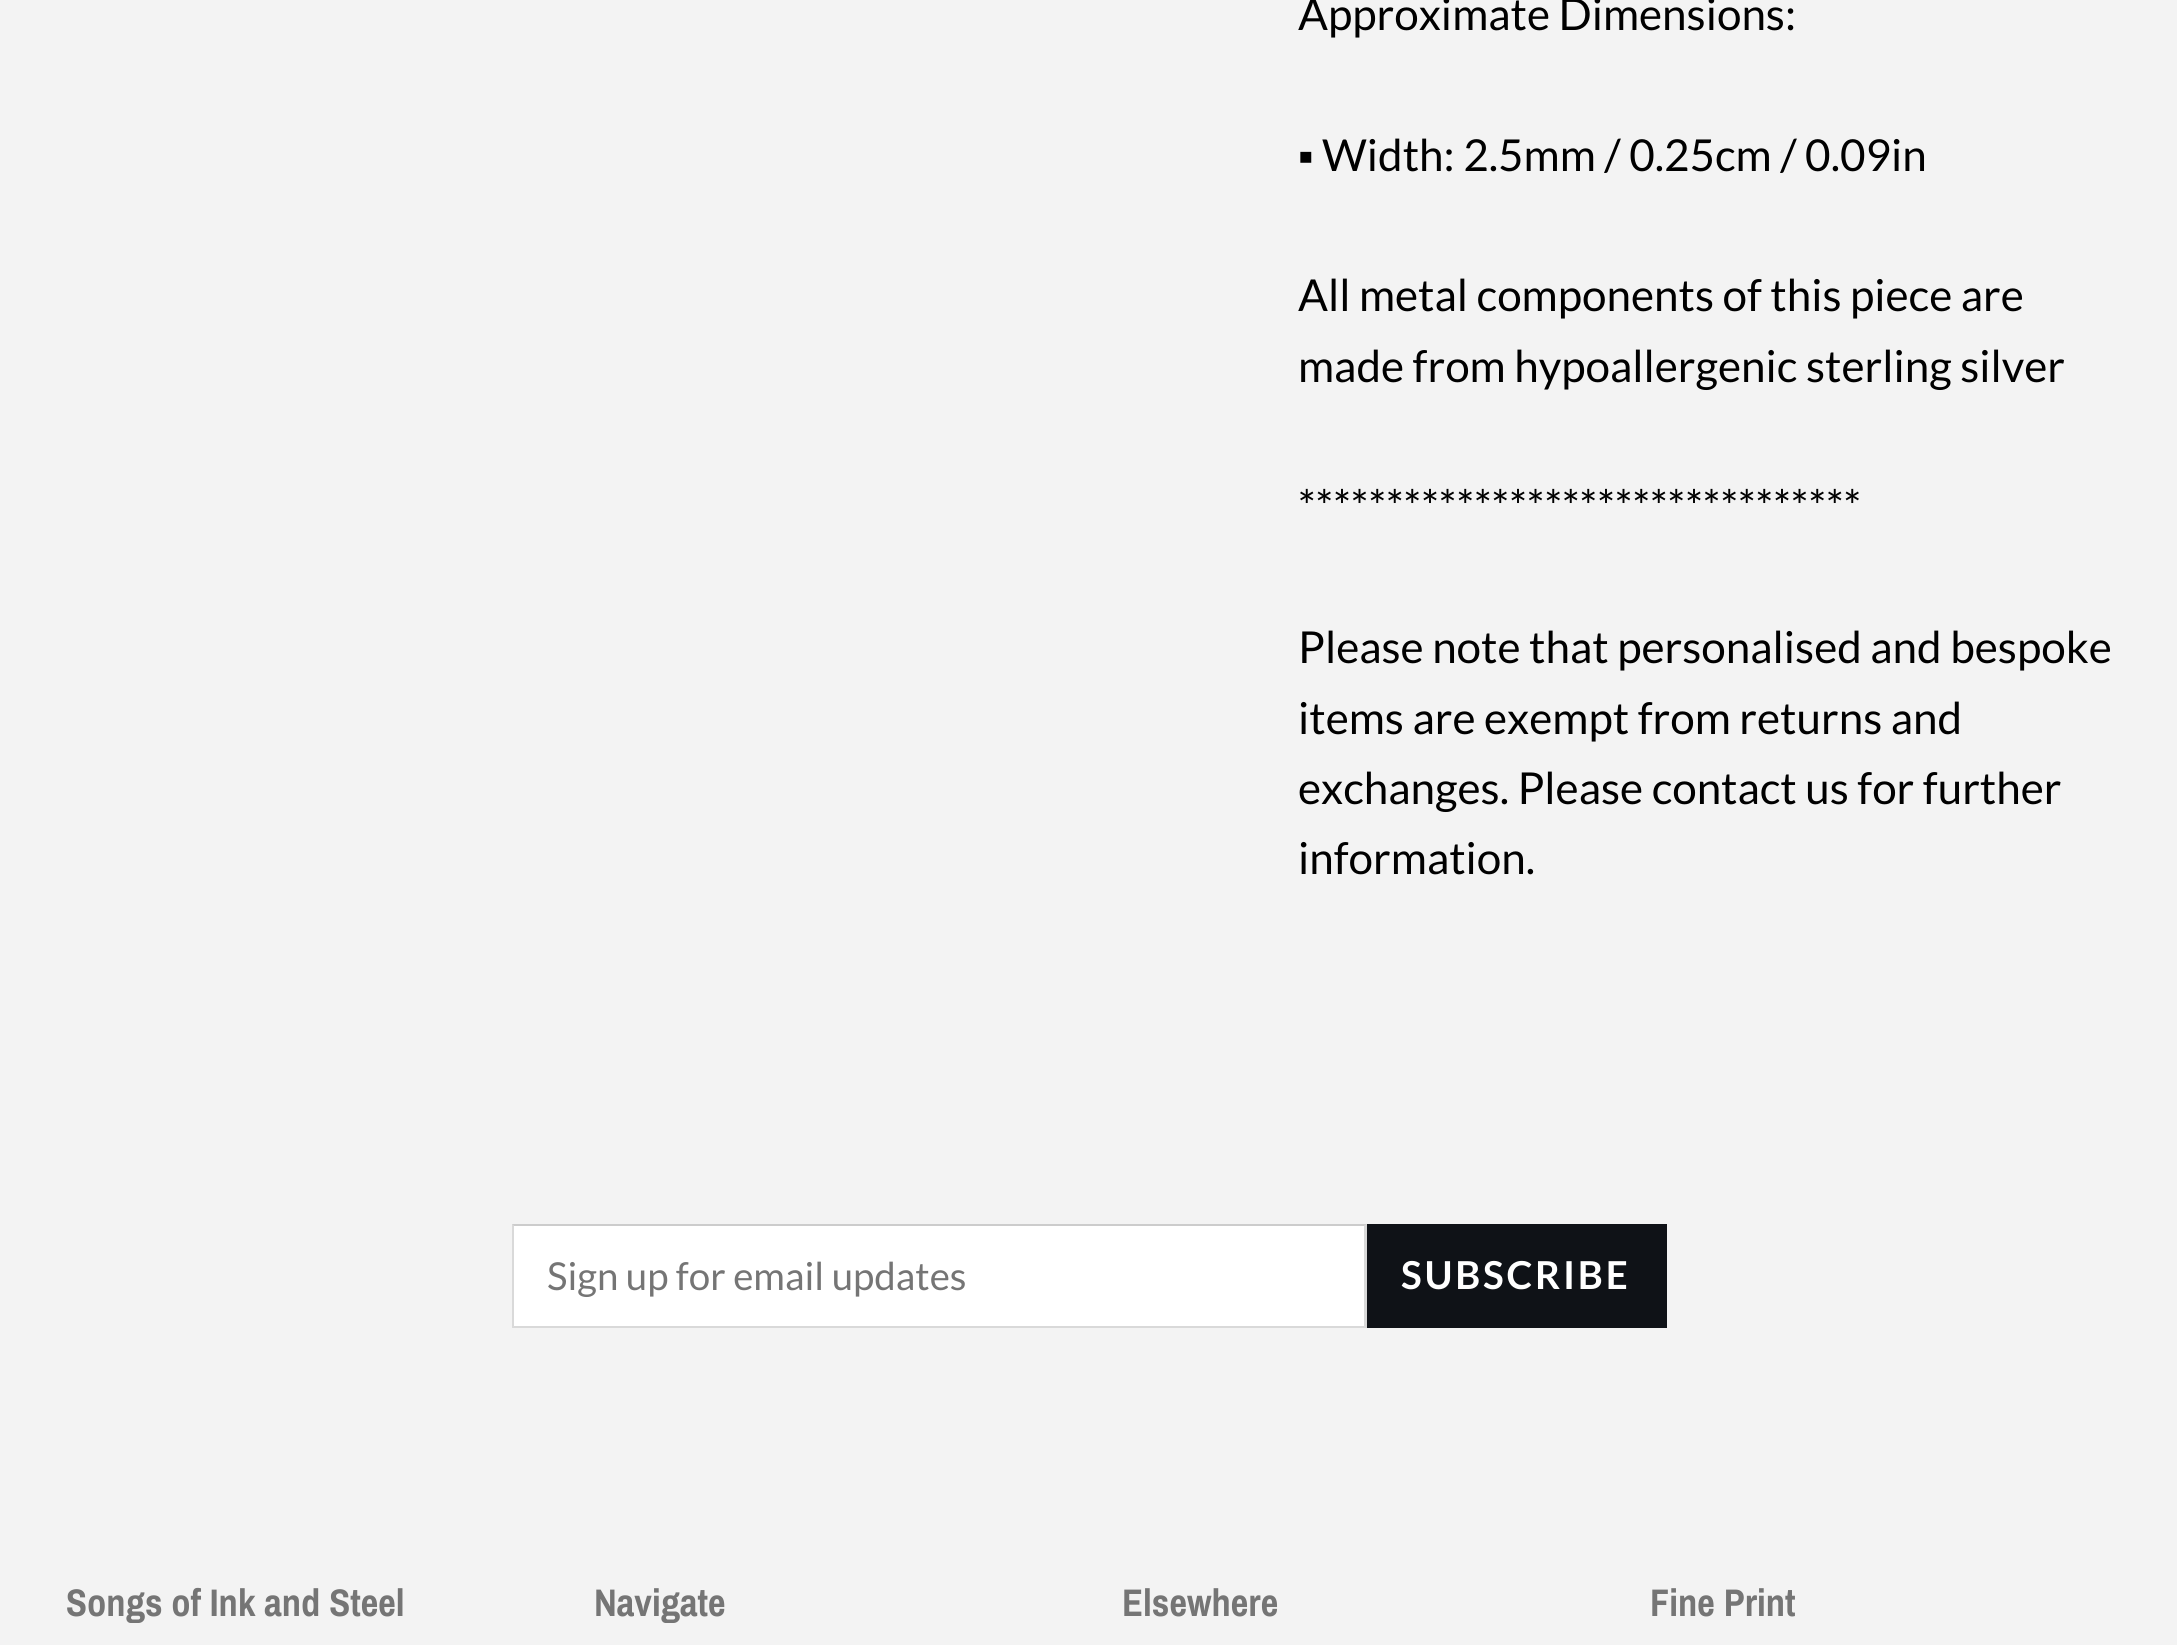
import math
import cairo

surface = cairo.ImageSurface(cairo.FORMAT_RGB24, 2177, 1645)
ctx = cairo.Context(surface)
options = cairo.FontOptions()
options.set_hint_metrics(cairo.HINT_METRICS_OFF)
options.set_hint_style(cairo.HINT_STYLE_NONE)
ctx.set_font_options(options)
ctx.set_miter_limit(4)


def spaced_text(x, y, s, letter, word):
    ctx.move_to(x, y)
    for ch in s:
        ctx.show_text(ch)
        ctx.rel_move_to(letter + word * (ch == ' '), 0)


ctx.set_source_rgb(0.953, 0.953, 0.953)
ctx.paint()
ctx.select_font_face("Lato")
ctx.set_font_size(44)
ctx.set_source_rgb(0, 0, 0)
ctx.move_to(1298, 30)
ctx.show_text("Approximate Dimensions:")
ctx.select_font_face("Liberation Serif")
ctx.move_to(1298, 171)
ctx.show_text("▪")
ctx.select_font_face("Lato")
ctx.move_to(1322, 171)
ctx.show_text("Width: 2.5mm / 0.25cm / 0.09in")
ctx.move_to(1298, 311)
ctx.show_text("All metal components of this piece are")
ctx.move_to(1298, 382)
ctx.show_text("made from hypoallergenic sterling silver")
ctx.move_to(1298, 522)
ctx.show_text("********************************")
ctx.move_to(1298, 663)
ctx.show_text("Please note that personalised and bespoke")
ctx.move_to(1298, 734)
ctx.show_text("items are exempt from returns and")
ctx.move_to(1298, 804)
ctx.show_text("exchanges. Please contact us for further")
ctx.move_to(1298, 874)
ctx.show_text("information.")
ctx.set_source_rgb(1, 1, 1)
ctx.rectangle(512, 1224, 855, 104)
ctx.fill()
ctx.set_source_rgb(0.8, 0.8, 0.8)
ctx.new_path()
ctx.move_to(512, 1224)
ctx.line_to(1367, 1224)
ctx.line_to(1364, 1226)
ctx.line_to(514, 1226)
ctx.close_path()
ctx.fill()
ctx.set_source_rgba(0, 0, 0, 0.15)
ctx.new_path()
ctx.move_to(1367, 1224)
ctx.line_to(1367, 1328)
ctx.line_to(1364, 1326)
ctx.line_to(1364, 1226)
ctx.close_path()
ctx.fill()
ctx.new_path()
ctx.move_to(1367, 1328)
ctx.line_to(512, 1328)
ctx.line_to(514, 1326)
ctx.line_to(1364, 1326)
ctx.close_path()
ctx.fill()
ctx.new_path()
ctx.move_to(512, 1328)
ctx.line_to(512, 1224)
ctx.line_to(514, 1226)
ctx.line_to(514, 1326)
ctx.close_path()
ctx.fill()
ctx.set_font_size(38.5)
ctx.set_source_rgb(0.459, 0.459, 0.459)
ctx.move_to(547, 1290)
ctx.show_text("Sign up for email updates")
ctx.set_source_rgb(0.059, 0.071, 0.09)
ctx.rectangle(1367, 1224, 300, 104)
ctx.fill()
ctx.select_font_face("Lato", cairo.FONT_SLANT_NORMAL, cairo.FONT_WEIGHT_BOLD)
ctx.set_source_rgb(1, 1, 1)
spaced_text(1401, 1289, "SUBSCRIBE", 2.75, 0)
ctx.select_font_face("Archivo Narrow", cairo.FONT_SLANT_NORMAL, cairo.FONT_WEIGHT_BOLD)
ctx.set_source_rgb(0.459, 0.459, 0.459)
ctx.move_to(66, 1616)
ctx.show_text("Songs of Ink and Steel")
ctx.move_to(594, 1616)
ctx.show_text("Navigate")
ctx.move_to(1122, 1616)
ctx.show_text("Elsewhere")
ctx.move_to(1650, 1616)
ctx.show_text("Fine Print")
surface.write_to_png("page.png")
